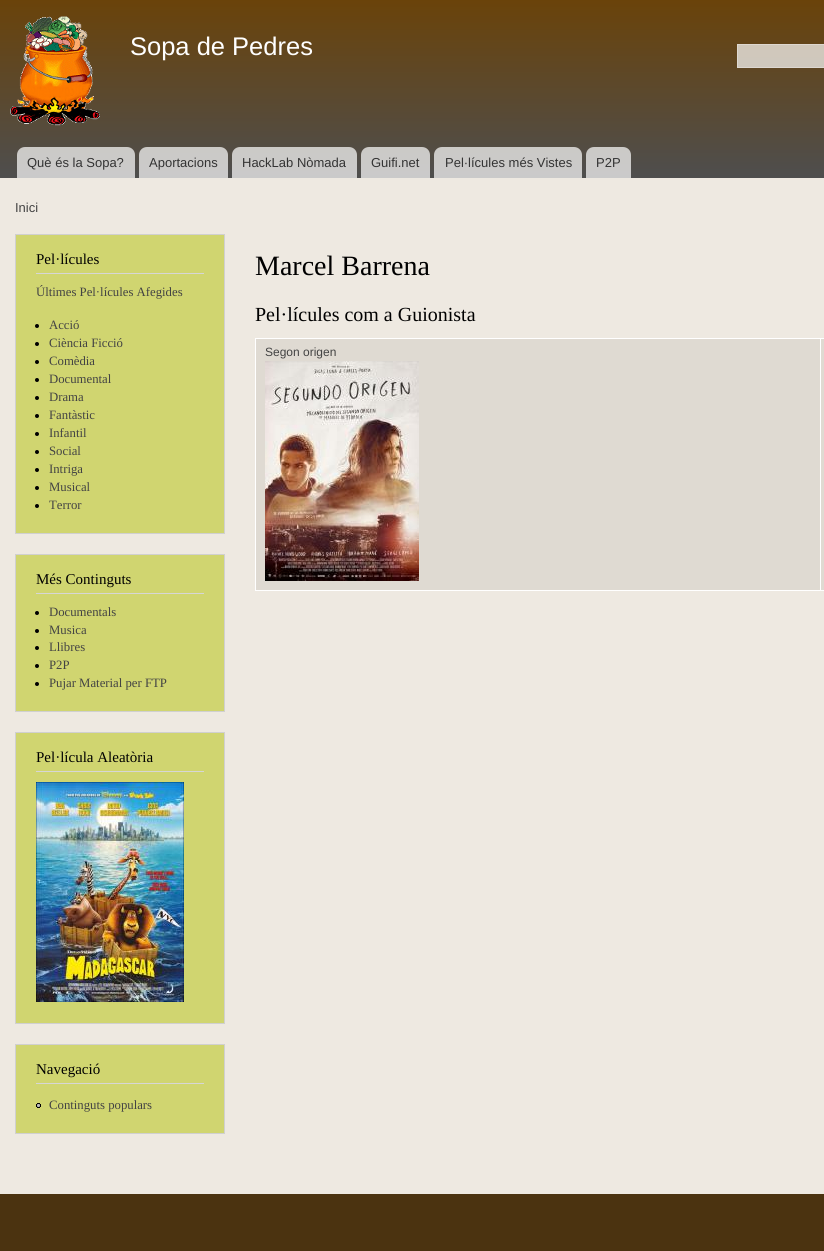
import math
import cairo

surface = cairo.ImageSurface(cairo.FORMAT_RGB24, 824, 1251)
ctx = cairo.Context(surface)
options = cairo.FontOptions()
options.set_hint_metrics(cairo.HINT_METRICS_OFF)
options.set_hint_style(cairo.HINT_STYLE_NONE)
ctx.set_font_options(options)
ctx.set_miter_limit(4)


def picture(path, x, y, w, h):
    ctx.save()
    ctx.set_source_surface(cairo.ImageSurface.create_from_png(path), x, y)
    ctx.rectangle(x, y, w, h)
    ctx.fill()
    ctx.restore()


ctx.set_source_rgb(0.933, 0.914, 0.882)
ctx.paint()
gradient = cairo.LinearGradient(480, 0, 480, 178)
gradient.add_color_stop_rgba(0, 0.416, 0.263, 0.039, 1)
gradient.add_color_stop_rgba(1, 0.306, 0.306, 0.306, 1)
ctx.set_source(gradient)
ctx.rectangle(0, 0, 824, 178)
ctx.fill()
gradient = cairo.LinearGradient(480, 0, 480, 178)
gradient.add_color_stop_rgba(0, 0.824, 0.78, 0.714, 1)
gradient.add_color_stop_rgba(1, 0.792, 0.792, 0.792, 1)
ctx.set_source(gradient)
ctx.rectangle(737, 44, 87, 24)
ctx.fill()
picture("img1.png", 10, 16, 90, 110)
ctx.select_font_face("Liberation Sans")
ctx.set_font_size(25.5)
ctx.set_source_rgb(1, 1, 1)
ctx.move_to(130, 55)
ctx.show_text("Sopa de Pedres")
ctx.rectangle(737.5, 44.5, 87, 23)
ctx.set_source_rgba(1, 1, 1, 0.3)
ctx.set_line_width(1)
ctx.stroke()
ctx.set_source_rgba(1, 1, 1, 0.7)
ctx.new_path()
ctx.move_to(25, 147)
ctx.line_to(127, 147)
ctx.curve_to(131.5, 147, 135, 150.5, 135, 155)
ctx.line_to(135, 178)
ctx.line_to(17, 178)
ctx.line_to(17, 155)
ctx.curve_to(17, 150.5, 20.5, 147, 25, 147)
ctx.close_path()
ctx.fill()
ctx.set_font_size(13)
ctx.set_source_rgb(0.2, 0.2, 0.2)
ctx.move_to(27, 167)
ctx.show_text("Què és la Sopa?")
ctx.set_source_rgba(1, 1, 1, 0.7)
ctx.new_path()
ctx.move_to(147, 147)
ctx.line_to(220, 147)
ctx.curve_to(224.5, 147, 228, 150.5, 228, 155)
ctx.line_to(228, 178)
ctx.line_to(139, 178)
ctx.line_to(139, 155)
ctx.curve_to(139, 150.5, 142.5, 147, 147, 147)
ctx.close_path()
ctx.fill()
ctx.set_source_rgb(0.2, 0.2, 0.2)
ctx.move_to(149, 167)
ctx.show_text("Aportacions")
ctx.set_source_rgba(1, 1, 1, 0.7)
ctx.new_path()
ctx.move_to(240, 147)
ctx.line_to(349, 147)
ctx.curve_to(353.5, 147, 357, 150.5, 357, 155)
ctx.line_to(357, 178)
ctx.line_to(232, 178)
ctx.line_to(232, 155)
ctx.curve_to(232, 150.5, 235.5, 147, 240, 147)
ctx.close_path()
ctx.fill()
ctx.set_source_rgb(0.2, 0.2, 0.2)
ctx.move_to(242, 167)
ctx.show_text("HackLab Nòmada")
ctx.set_source_rgba(1, 1, 1, 0.7)
ctx.new_path()
ctx.move_to(369, 147)
ctx.line_to(422, 147)
ctx.curve_to(426.5, 147, 430, 150.5, 430, 155)
ctx.line_to(430, 178)
ctx.line_to(361, 178)
ctx.line_to(361, 155)
ctx.curve_to(361, 150.5, 364.5, 147, 369, 147)
ctx.close_path()
ctx.fill()
ctx.set_source_rgb(0.2, 0.2, 0.2)
ctx.move_to(371, 167)
ctx.show_text("Guifi.net")
ctx.set_source_rgba(1, 1, 1, 0.7)
ctx.new_path()
ctx.move_to(442, 147)
ctx.line_to(574, 147)
ctx.curve_to(578.5, 147, 582, 150.5, 582, 155)
ctx.line_to(582, 178)
ctx.line_to(434, 178)
ctx.line_to(434, 155)
ctx.curve_to(434, 150.5, 437.5, 147, 442, 147)
ctx.close_path()
ctx.fill()
ctx.set_source_rgb(0.2, 0.2, 0.2)
ctx.move_to(445, 167)
ctx.show_text("Pel·lícules més Vistes")
ctx.set_source_rgba(1, 1, 1, 0.7)
ctx.new_path()
ctx.move_to(594, 147)
ctx.line_to(623, 147)
ctx.curve_to(627.5, 147, 631, 150.5, 631, 155)
ctx.line_to(631, 178)
ctx.line_to(586, 178)
ctx.line_to(586, 155)
ctx.curve_to(586, 150.5, 589.5, 147, 594, 147)
ctx.close_path()
ctx.fill()
ctx.set_source_rgb(0.2, 0.2, 0.2)
ctx.move_to(596, 167)
ctx.show_text("P2P")
ctx.set_source_rgb(0.263, 0.263, 0.263)
ctx.move_to(15, 212)
ctx.show_text("Inici")
ctx.set_source_rgb(0.816, 0.835, 0.439)
ctx.rectangle(15.5, 234.5, 209, 299)
ctx.fill_preserve()
ctx.set_source_rgb(0.816, 0.816, 0.816)
ctx.stroke()
ctx.set_source_rgb(0.839, 0.839, 0.839)
ctx.rectangle(36, 273, 168, 1)
ctx.fill()
ctx.select_font_face("Liberation Serif")
ctx.set_font_size(15)
ctx.set_source_rgb(0, 0, 0)
ctx.move_to(36, 264)
ctx.show_text("Pel·lícules")
ctx.set_font_size(12.75)
ctx.set_source_rgb(0.263, 0.263, 0.263)
ctx.move_to(36, 296)
ctx.show_text("Últimes Pel·lícules Afegides")
ctx.set_source_rgb(0, 0, 0)
ctx.new_path()
ctx.arc(37, 326, 2, 0, 2 * math.pi)
ctx.fill()
ctx.set_source_rgb(0.263, 0.263, 0.263)
ctx.move_to(49, 329)
ctx.show_text("Acció")
ctx.set_source_rgb(0, 0, 0)
ctx.new_path()
ctx.arc(37, 344, 2, 0, 2 * math.pi)
ctx.fill()
ctx.set_source_rgb(0.263, 0.263, 0.263)
ctx.move_to(49, 347)
ctx.show_text("Ciència Ficció")
ctx.set_source_rgb(0, 0, 0)
ctx.new_path()
ctx.arc(37, 362, 2, 0, 2 * math.pi)
ctx.fill()
ctx.set_source_rgb(0.263, 0.263, 0.263)
ctx.move_to(49, 365)
ctx.show_text("Comèdia")
ctx.set_source_rgb(0, 0, 0)
ctx.new_path()
ctx.arc(37, 380, 2, 0, 2 * math.pi)
ctx.fill()
ctx.set_source_rgb(0.263, 0.263, 0.263)
ctx.move_to(49, 383)
ctx.show_text("Documental")
ctx.set_source_rgb(0, 0, 0)
ctx.new_path()
ctx.arc(37, 398, 2, 0, 2 * math.pi)
ctx.fill()
ctx.set_source_rgb(0.263, 0.263, 0.263)
ctx.move_to(49, 401)
ctx.show_text("Drama")
ctx.set_source_rgb(0, 0, 0)
ctx.new_path()
ctx.arc(37, 416, 2, 0, 2 * math.pi)
ctx.fill()
ctx.set_source_rgb(0.263, 0.263, 0.263)
ctx.move_to(49, 419)
ctx.show_text("Fantàstic")
ctx.set_source_rgb(0, 0, 0)
ctx.new_path()
ctx.arc(37, 434, 2, 0, 2 * math.pi)
ctx.fill()
ctx.set_source_rgb(0.263, 0.263, 0.263)
ctx.move_to(49, 437)
ctx.show_text("Infantil")
ctx.set_source_rgb(0, 0, 0)
ctx.new_path()
ctx.arc(37, 452, 2, 0, 2 * math.pi)
ctx.fill()
ctx.set_source_rgb(0.263, 0.263, 0.263)
ctx.move_to(49, 455)
ctx.show_text("Social")
ctx.set_source_rgb(0, 0, 0)
ctx.new_path()
ctx.arc(37, 470, 2, 0, 2 * math.pi)
ctx.fill()
ctx.set_source_rgb(0.263, 0.263, 0.263)
ctx.move_to(49, 473)
ctx.show_text("Intriga")
ctx.set_source_rgb(0, 0, 0)
ctx.new_path()
ctx.arc(37, 488, 2, 0, 2 * math.pi)
ctx.fill()
ctx.set_source_rgb(0.263, 0.263, 0.263)
ctx.move_to(49, 491)
ctx.show_text("Musical")
ctx.set_source_rgb(0, 0, 0)
ctx.new_path()
ctx.arc(37, 506, 2, 0, 2 * math.pi)
ctx.fill()
ctx.set_source_rgb(0.263, 0.263, 0.263)
ctx.move_to(49, 509)
ctx.show_text("Terror")
ctx.set_source_rgb(0.816, 0.835, 0.439)
ctx.rectangle(15.5, 554.5, 209, 157)
ctx.fill_preserve()
ctx.set_source_rgb(0.816, 0.816, 0.816)
ctx.stroke()
ctx.set_source_rgb(0.839, 0.839, 0.839)
ctx.rectangle(36, 593, 168, 1)
ctx.fill()
ctx.set_font_size(15)
ctx.set_source_rgb(0, 0, 0)
ctx.move_to(36, 584)
ctx.show_text("Més Continguts")
ctx.new_path()
ctx.arc(37, 613, 2, 0, 2 * math.pi)
ctx.fill()
ctx.set_font_size(12.75)
ctx.set_source_rgb(0.263, 0.263, 0.263)
ctx.move_to(49, 616)
ctx.show_text("Documentals")
ctx.set_source_rgb(0, 0, 0)
ctx.new_path()
ctx.arc(37, 631, 2, 0, 2 * math.pi)
ctx.fill()
ctx.set_source_rgb(0.263, 0.263, 0.263)
ctx.move_to(49, 634)
ctx.show_text("Musica")
ctx.set_source_rgb(0, 0, 0)
ctx.new_path()
ctx.arc(37, 648, 2, 0, 2 * math.pi)
ctx.fill()
ctx.set_source_rgb(0.263, 0.263, 0.263)
ctx.move_to(49, 651)
ctx.show_text("Llibres")
ctx.set_source_rgb(0, 0, 0)
ctx.new_path()
ctx.arc(37, 666, 2, 0, 2 * math.pi)
ctx.fill()
ctx.set_source_rgb(0.263, 0.263, 0.263)
ctx.move_to(49, 669)
ctx.show_text("P2P")
ctx.set_source_rgb(0, 0, 0)
ctx.new_path()
ctx.arc(37, 684, 2, 0, 2 * math.pi)
ctx.fill()
ctx.set_source_rgb(0.263, 0.263, 0.263)
ctx.move_to(49, 687)
ctx.show_text("Pujar Material per FTP")
ctx.set_source_rgb(0.816, 0.835, 0.439)
ctx.rectangle(15.5, 732.5, 209, 291)
ctx.fill_preserve()
ctx.set_source_rgb(0.816, 0.816, 0.816)
ctx.stroke()
ctx.set_source_rgb(0.839, 0.839, 0.839)
ctx.rectangle(36, 771, 168, 1)
ctx.fill()
ctx.set_font_size(15)
ctx.set_source_rgb(0, 0, 0)
ctx.move_to(36, 762)
ctx.show_text("Pel·lícula Aleatòria")
picture("img2.png", 36, 782, 148, 220)
ctx.set_source_rgb(0.816, 0.835, 0.439)
ctx.rectangle(15.5, 1044.5, 209, 89)
ctx.fill_preserve()
ctx.set_source_rgb(0.816, 0.816, 0.816)
ctx.stroke()
ctx.set_source_rgb(0.839, 0.839, 0.839)
ctx.rectangle(36, 1083, 168, 1)
ctx.fill()
ctx.set_source_rgb(0, 0, 0)
ctx.move_to(36, 1074)
ctx.show_text("Navegació")
picture("img3.png", 36, 1103, 5, 5)
ctx.set_font_size(12.75)
ctx.set_source_rgb(0.263, 0.263, 0.263)
ctx.move_to(49, 1109)
ctx.show_text("Continguts populars")
ctx.set_font_size(28)
ctx.set_source_rgb(0, 0, 0)
ctx.move_to(255, 275)
ctx.show_text("Marcel Barrena")
ctx.set_font_size(20)
ctx.move_to(255, 321)
ctx.show_text("Pel·lícules com a Guionista")
ctx.set_source_rgb(0.875, 0.855, 0.824)
ctx.rectangle(256, 339, 568, 251)
ctx.fill()
ctx.set_source_rgb(1, 1, 1)
ctx.rectangle(820, 338, 4, 1)
ctx.fill()
ctx.rectangle(820, 590, 4, 1)
ctx.fill()
ctx.rectangle(820, 338, 1, 253)
ctx.fill()
ctx.rectangle(255, 338, 566, 1)
ctx.fill()
ctx.rectangle(255, 590, 566, 1)
ctx.fill()
ctx.rectangle(255, 338, 1, 253)
ctx.fill()
ctx.select_font_face("Liberation Sans")
ctx.set_font_size(12)
ctx.set_source_rgb(0.263, 0.263, 0.263)
ctx.move_to(265, 356)
ctx.show_text("Segon origen")
picture("img4.png", 265, 361, 154, 220)
ctx.set_source_rgb(0.294, 0.2, 0.063)
ctx.rectangle(0, 1194, 824, 57)
ctx.fill()
surface.write_to_png("page.png")
